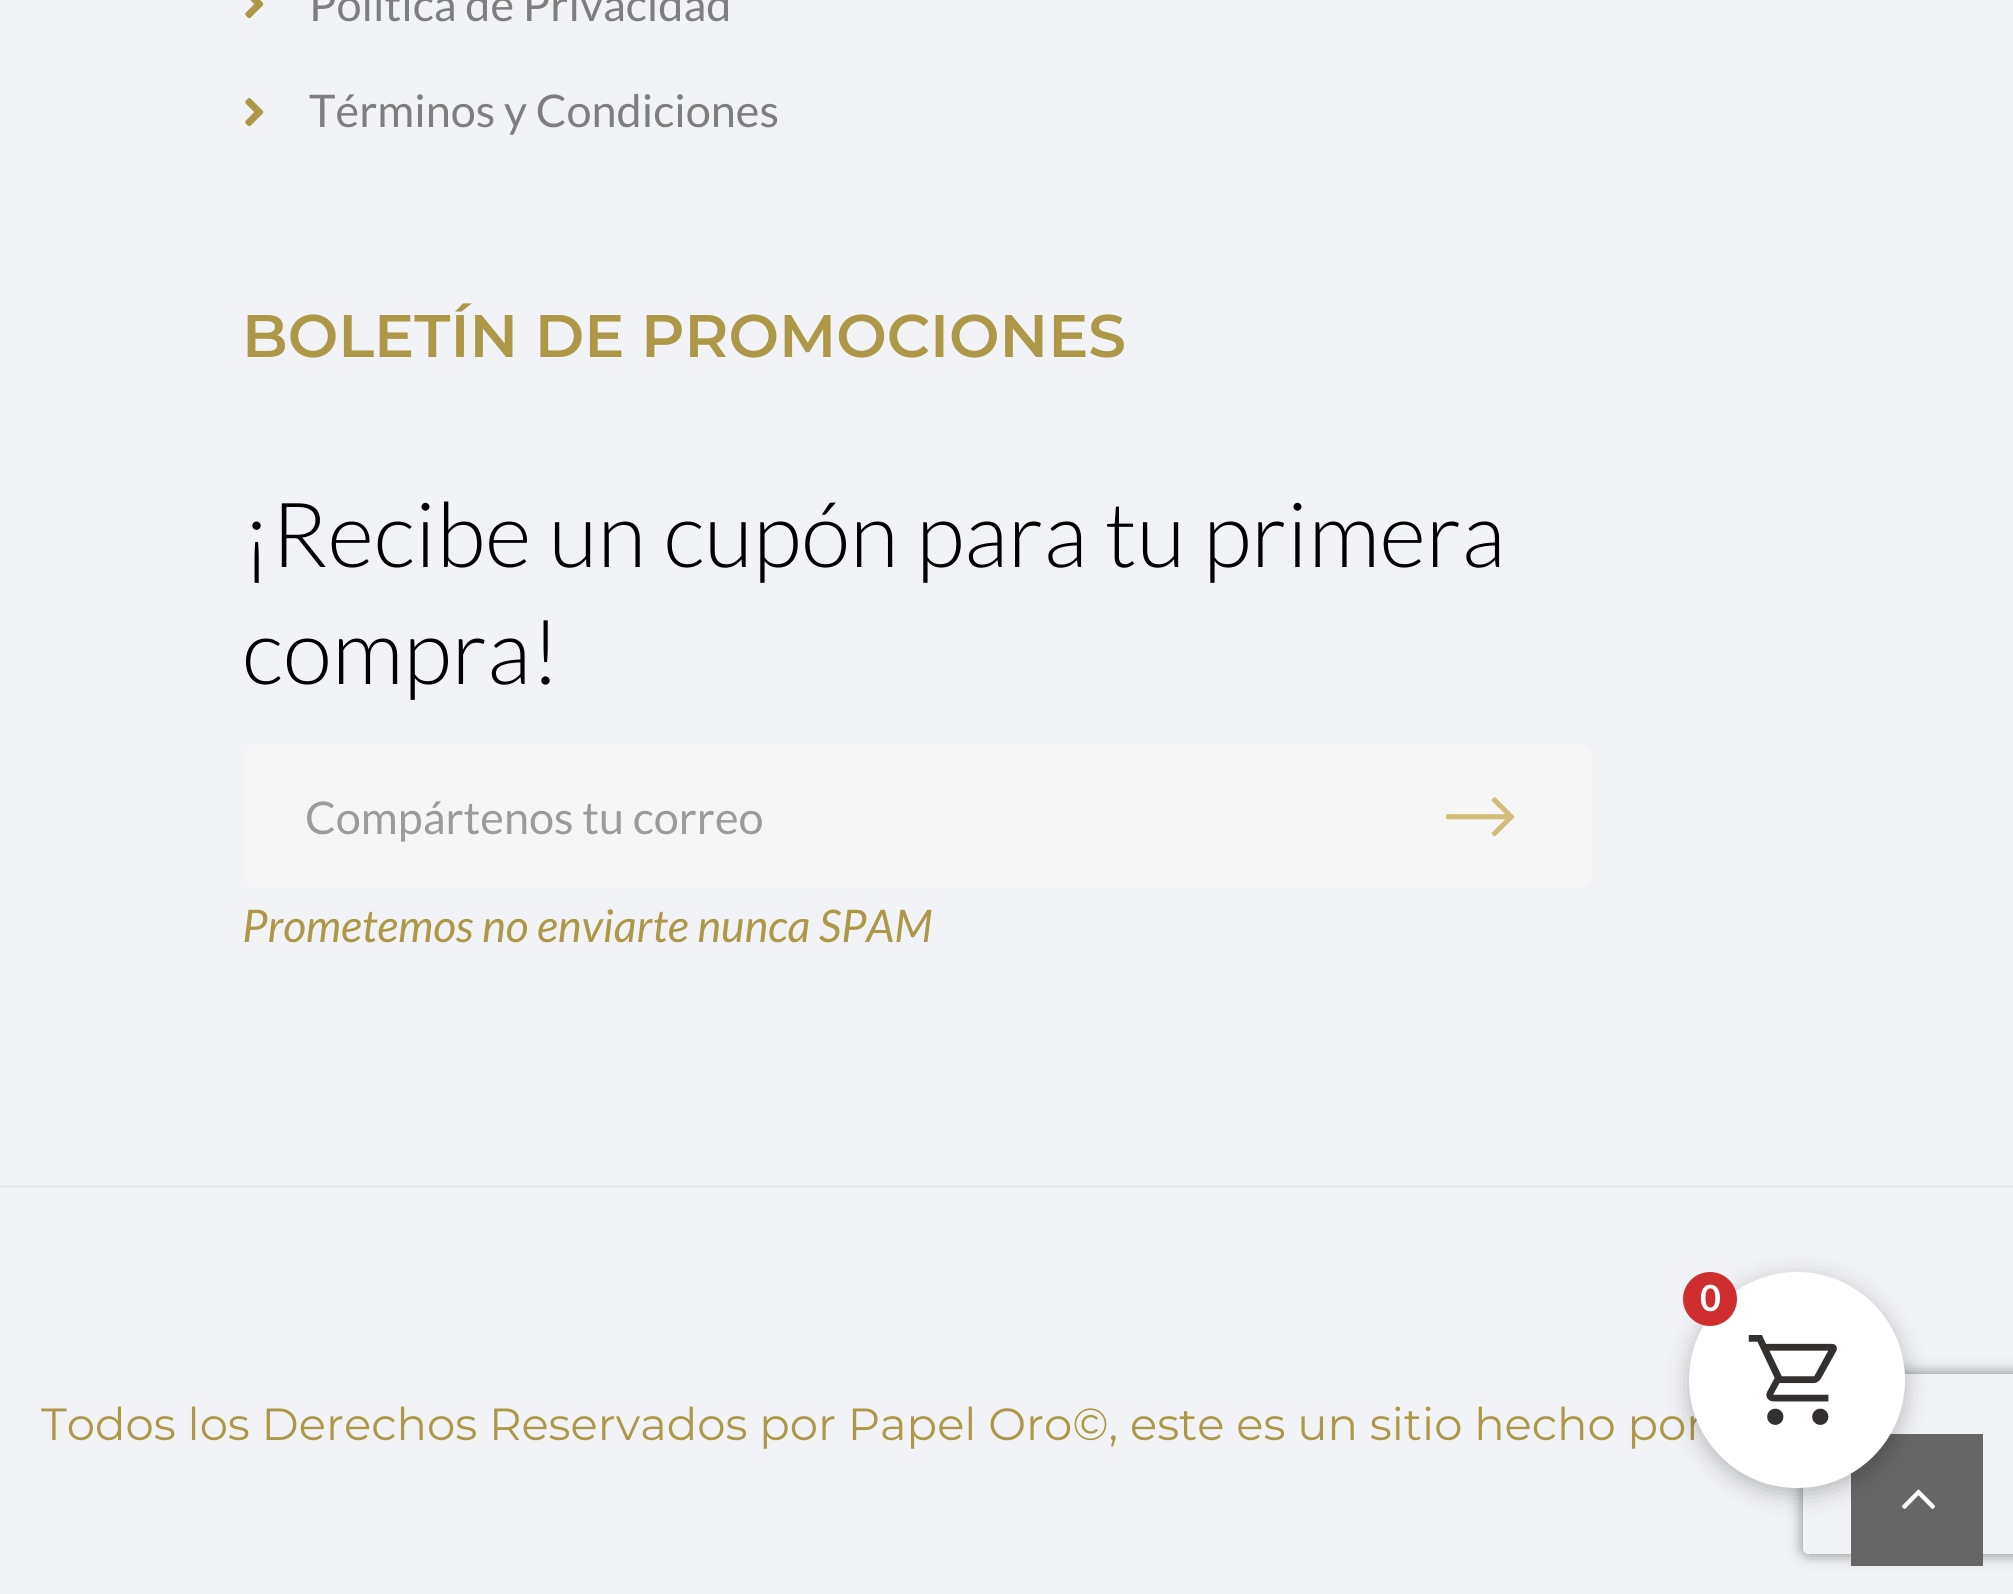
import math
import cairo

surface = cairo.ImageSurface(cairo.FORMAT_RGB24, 2013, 1594)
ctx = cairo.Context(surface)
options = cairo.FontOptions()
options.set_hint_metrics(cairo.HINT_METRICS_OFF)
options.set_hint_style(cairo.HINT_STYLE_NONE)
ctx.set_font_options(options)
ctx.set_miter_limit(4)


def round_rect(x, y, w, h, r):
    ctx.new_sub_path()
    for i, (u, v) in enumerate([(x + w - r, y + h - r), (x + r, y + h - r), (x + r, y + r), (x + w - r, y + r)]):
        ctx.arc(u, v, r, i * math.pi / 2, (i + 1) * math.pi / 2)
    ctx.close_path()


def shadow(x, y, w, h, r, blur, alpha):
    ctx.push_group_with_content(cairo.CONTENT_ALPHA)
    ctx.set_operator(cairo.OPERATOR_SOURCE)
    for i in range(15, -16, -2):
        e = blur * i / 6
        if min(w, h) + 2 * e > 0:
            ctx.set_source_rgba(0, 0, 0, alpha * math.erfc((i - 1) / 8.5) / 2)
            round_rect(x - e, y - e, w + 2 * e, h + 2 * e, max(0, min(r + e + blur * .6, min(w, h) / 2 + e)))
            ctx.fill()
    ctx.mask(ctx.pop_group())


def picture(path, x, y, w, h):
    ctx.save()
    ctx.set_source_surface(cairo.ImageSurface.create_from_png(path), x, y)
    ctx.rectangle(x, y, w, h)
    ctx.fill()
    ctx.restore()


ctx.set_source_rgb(0.949, 0.953, 0.961)
ctx.paint()
picture("img1.png", 245, 0, 19, 19)
ctx.select_font_face("Lato")
ctx.set_font_size(45)
ctx.set_source_rgb(0.494, 0.494, 0.494)
ctx.move_to(309, 21)
ctx.show_text("Política de Privacidad")
picture("img2.png", 245, 98, 19, 29)
ctx.move_to(309, 127)
ctx.show_text("Términos y Condiciones")
ctx.select_font_face("Montserrat SemiBold")
ctx.set_font_size(60)
ctx.set_source_rgb(0.678, 0.596, 0.282)
ctx.move_to(242, 357)
ctx.show_text("BOLETÍN DE PROMOCIONES")
ctx.select_font_face("Lato Light")
ctx.set_font_size(90)
ctx.set_source_rgb(0, 0, 0)
ctx.move_to(242, 567)
ctx.show_text("¡Recibe un cupón para tu primera")
ctx.move_to(242, 684)
ctx.show_text("compra!")
ctx.set_source_rgb(0.961, 0.961, 0.961)
round_rect(243, 744, 1350, 144, 15)
ctx.fill()
ctx.select_font_face("Lato")
ctx.set_font_size(45)
ctx.set_source_rgb(0.608, 0.608, 0.608)
ctx.move_to(305, 834)
ctx.show_text("Compártenos tu correo")
picture("img3.png", 1446, 797, 69, 40)
ctx.select_font_face("Lato", cairo.FONT_SLANT_ITALIC)
ctx.set_source_rgb(0.678, 0.596, 0.282)
ctx.move_to(242, 942)
ctx.show_text("Prometemos no enviarte nunca SPAM")
ctx.set_source_rgb(0.91, 0.918, 0.925)
ctx.rectangle(0, 1185, 2013, 3)
ctx.fill()
ctx.select_font_face("Montserrat")
ctx.set_source_rgb(0.678, 0.596, 0.282)
ctx.move_to(41, 1440)
ctx.show_text("Todos los Derechos Reservados por Papel Oro©, este es un sitio hecho por")
ctx.save()
ctx.set_fill_rule(cairo.FILL_RULE_EVEN_ODD)
ctx.new_path()
ctx.move_to(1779, 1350)
ctx.line_to(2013, 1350)
ctx.line_to(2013, 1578)
ctx.line_to(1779, 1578)
ctx.close_path()
ctx.move_to(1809, 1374)
ctx.line_to(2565, 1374)
ctx.curve_to(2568.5, 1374, 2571, 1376.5, 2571, 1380)
ctx.line_to(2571, 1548)
ctx.curve_to(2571, 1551.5, 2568.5, 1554, 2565, 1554)
ctx.line_to(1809, 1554)
ctx.curve_to(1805.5, 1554, 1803, 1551.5, 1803, 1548)
ctx.line_to(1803, 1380)
ctx.curve_to(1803, 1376.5, 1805.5, 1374, 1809, 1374)
ctx.close_path()
ctx.clip()
ctx.set_source_rgb(0.502, 0.502, 0.502)
shadow(1803, 1374, 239, 180, 6, 7.5, 1)
ctx.restore()
ctx.set_source_rgb(0.4, 0.4, 0.4)
ctx.rectangle(1851, 1434, 132, 132)
ctx.fill()
picture("img5.png", 1902, 1489, 33, 20)
ctx.set_source_rgb(0, 0, 0)
shadow(1689, 1278, 216, 216, 108, 12, 0.25)
ctx.set_source_rgb(1, 1, 1)
ctx.arc(1797, 1380, 108, 0, 2 * math.pi)
ctx.fill()
picture("img4.png", 1748, 1335, 89, 90)
ctx.set_source_rgb(0.812, 0.18, 0.18)
ctx.arc(1710, 1299, 27, 0, 2 * math.pi)
ctx.fill()
ctx.select_font_face("Lato", cairo.FONT_SLANT_NORMAL, cairo.FONT_WEIGHT_BOLD)
ctx.set_font_size(36)
ctx.set_source_rgb(1, 1, 1)
ctx.move_to(1700, 1311)
ctx.show_text("0")
surface.write_to_png("page.png")
